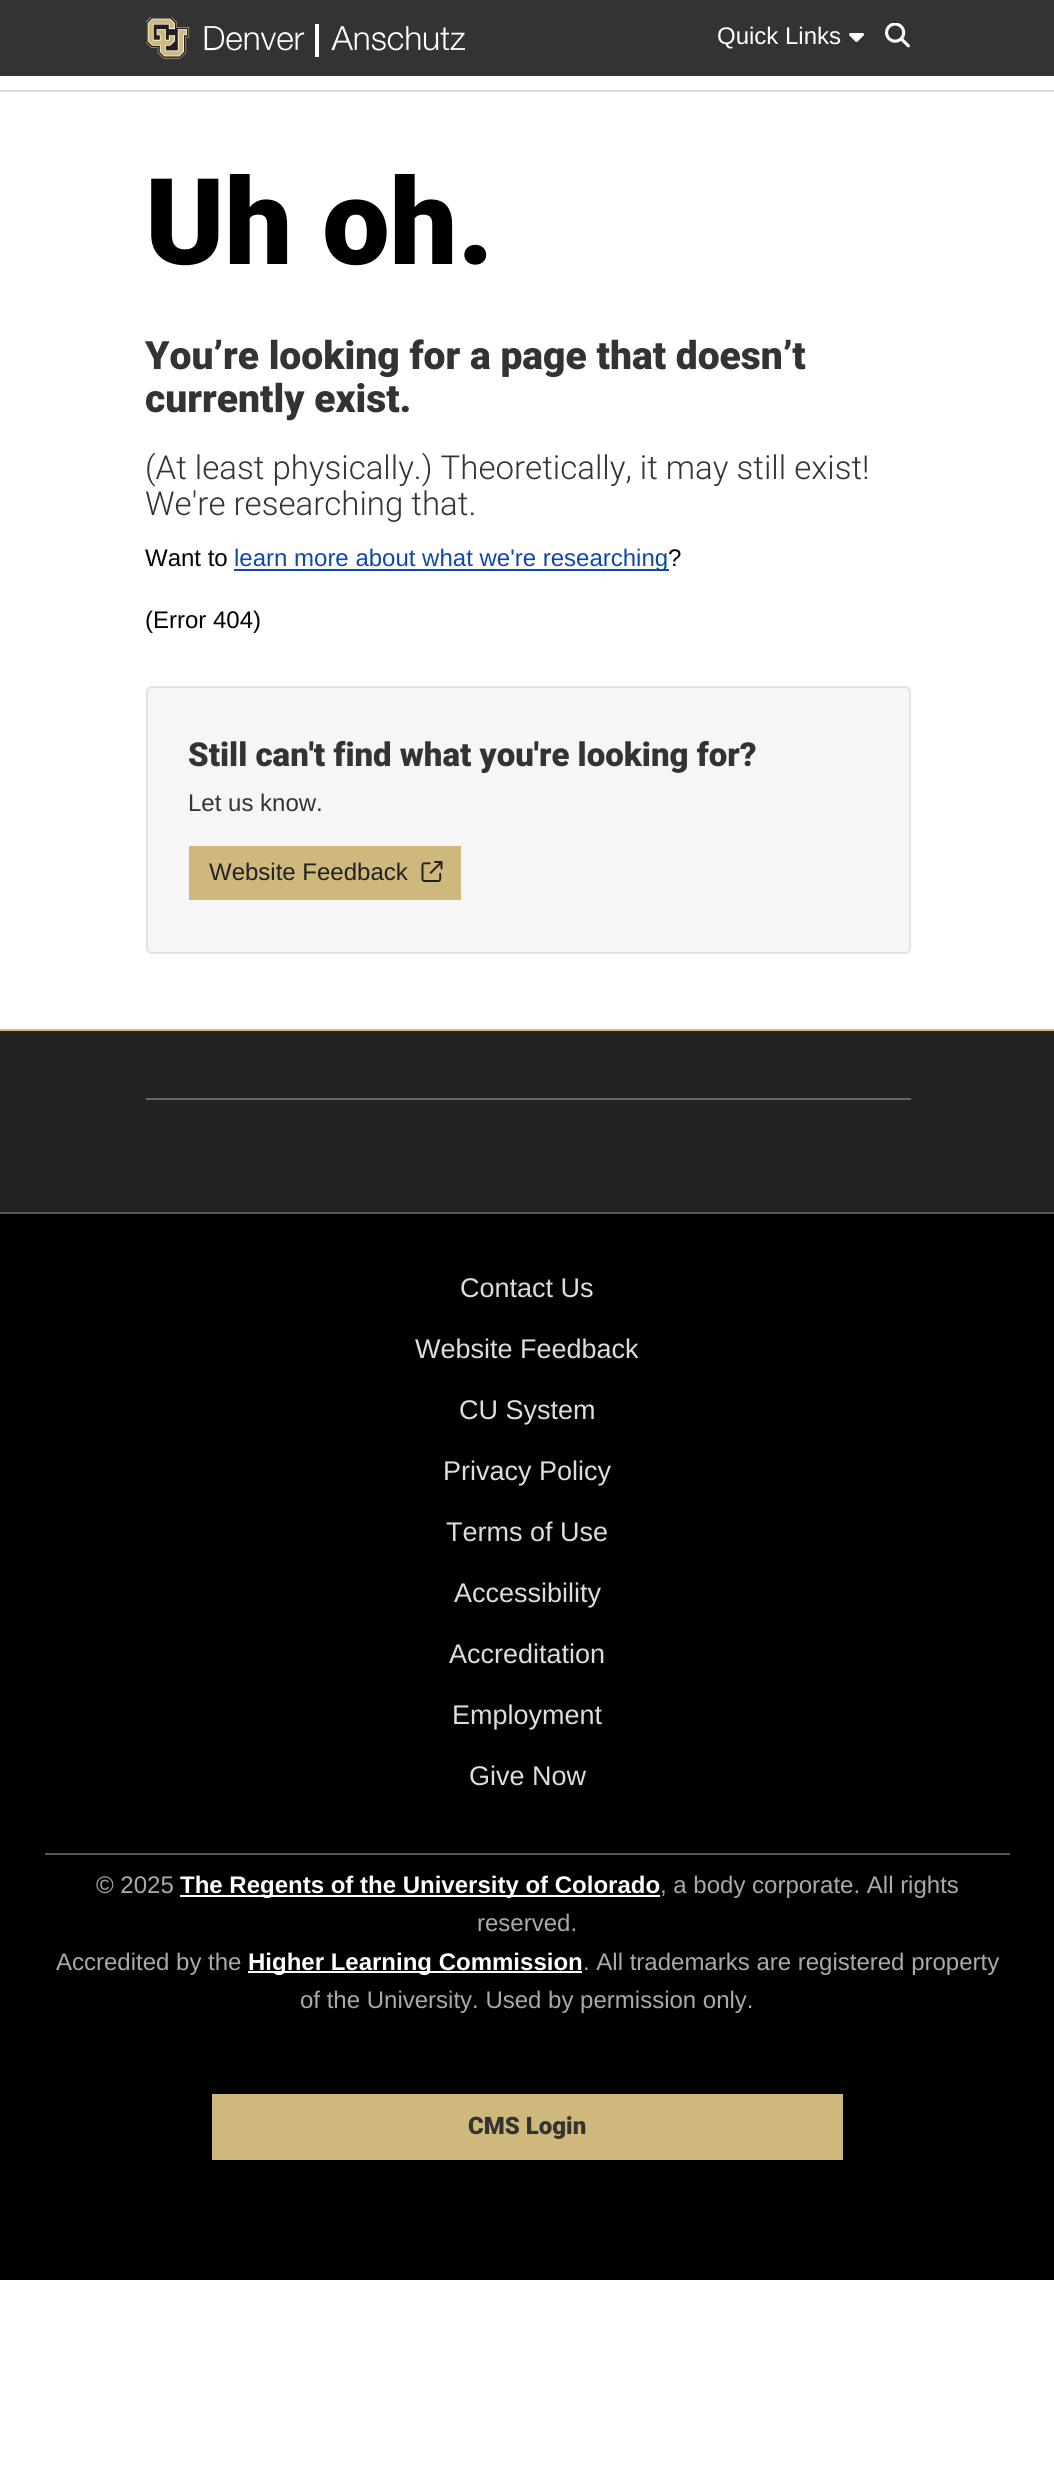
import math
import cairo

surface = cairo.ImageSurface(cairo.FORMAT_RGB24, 1054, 2486)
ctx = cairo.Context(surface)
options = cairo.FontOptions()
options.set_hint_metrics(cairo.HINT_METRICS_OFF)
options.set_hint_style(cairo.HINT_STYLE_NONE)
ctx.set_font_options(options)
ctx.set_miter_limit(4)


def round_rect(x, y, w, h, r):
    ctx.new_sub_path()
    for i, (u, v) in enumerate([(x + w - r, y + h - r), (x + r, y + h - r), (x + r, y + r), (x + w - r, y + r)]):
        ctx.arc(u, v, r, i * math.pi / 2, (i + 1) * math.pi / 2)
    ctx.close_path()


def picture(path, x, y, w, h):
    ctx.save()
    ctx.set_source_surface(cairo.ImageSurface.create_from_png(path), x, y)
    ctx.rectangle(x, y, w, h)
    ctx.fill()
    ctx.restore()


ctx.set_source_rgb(1, 1, 1)
ctx.paint()
ctx.set_source_rgb(0.2, 0.2, 0.2)
ctx.rectangle(0, 0, 1054, 76)
ctx.fill()
picture("img1.png", 146, 17, 159, 42)
ctx.set_source_rgb(1, 1, 1)
ctx.rectangle(315, 24, 4, 33)
ctx.fill()
picture("img2.png", 331, 26, 134, 25)
ctx.select_font_face("Liberation Sans")
ctx.set_font_size(24)
ctx.move_to(717, 44)
ctx.show_text("Quick Links")
picture("img3.png", 849, 33, 15, 9)
picture("img4.png", 885, 23, 25, 25)
ctx.set_source_rgb(0.867, 0.867, 0.867)
ctx.rectangle(0, 90, 1054, 2)
ctx.fill()
ctx.select_font_face("Roboto Black")
ctx.set_font_size(120)
ctx.set_source_rgb(0, 0, 0)
ctx.move_to(145, 264)
ctx.show_text("Uh oh.")
ctx.set_font_size(39)
ctx.set_source_rgb(0.2, 0.2, 0.2)
ctx.move_to(145, 369)
ctx.show_text("You’re looking for a page that doesn’t")
ctx.move_to(145, 412)
ctx.show_text("currently exist.")
ctx.select_font_face("Roboto Light")
ctx.set_font_size(33)
ctx.move_to(145, 479)
ctx.show_text("(At least physically.) Theoretically, it may still exist!")
ctx.move_to(145, 515)
ctx.show_text("We're researching that.")
ctx.select_font_face("Liberation Sans")
ctx.set_font_size(24)
ctx.set_source_rgb(0, 0, 0)
ctx.move_to(145, 566)
ctx.show_text("Want to")
ctx.set_source_rgb(0.055, 0.282, 0.678)
ctx.rectangle(234, 569, 435, 2)
ctx.fill()
ctx.move_to(234, 566)
ctx.show_text("learn more about what we're researching")
ctx.set_source_rgb(0, 0, 0)
ctx.move_to(668, 566)
ctx.show_text("?")
ctx.move_to(145, 628)
ctx.show_text("(Error 404)")
ctx.set_source_rgb(0.961, 0.961, 0.961)
round_rect(146, 686, 765, 268, 6)
ctx.fill()
ctx.set_source_rgb(0.914, 0.914, 0.914)
ctx.new_path()
ctx.move_to(152, 688)
ctx.line_to(904, 688)
ctx.curve_to(907, 688, 909, 691, 909, 693)
ctx.line_to(909, 692)
ctx.curve_to(909, 689, 907, 687, 904, 687)
ctx.line_to(152, 687)
ctx.curve_to(149, 687, 147, 689, 147, 692)
ctx.line_to(147, 693)
ctx.curve_to(147, 691, 149, 688, 152, 688)
ctx.close_path()
ctx.fill()
round_rect(147, 687, 763, 266, 5)
ctx.set_source_rgb(0.89, 0.89, 0.89)
ctx.stroke()
ctx.select_font_face("Roboto Black")
ctx.set_font_size(33)
ctx.set_source_rgb(0.2, 0.2, 0.2)
ctx.move_to(188, 766)
ctx.show_text("Still can't find what you're looking for?")
ctx.select_font_face("Liberation Sans")
ctx.set_font_size(24)
ctx.move_to(188, 811)
ctx.show_text("Let us know.")
ctx.set_source_rgb(0.812, 0.722, 0.486)
ctx.rectangle(189, 846, 272, 54)
ctx.fill()
ctx.set_source_rgb(0.133, 0.133, 0.133)
ctx.move_to(209, 880)
ctx.show_text("Website Feedback")
picture("img5.png", 421, 861, 22, 21)
ctx.rectangle(0, 1031, 1054, 181)
ctx.fill()
ctx.set_source_rgb(0.812, 0.722, 0.486)
ctx.rectangle(0, 1029, 1054, 2)
ctx.fill()
ctx.set_source_rgb(0.4, 0.4, 0.4)
ctx.rectangle(146, 1098, 765, 2)
ctx.fill()
ctx.set_source_rgb(0, 0, 0)
ctx.rectangle(0, 1214, 1054, 1066)
ctx.fill()
ctx.set_source_rgb(0.333, 0.333, 0.333)
ctx.rectangle(0, 1212, 1054, 2)
ctx.fill()
ctx.set_font_size(27)
ctx.set_source_rgb(0.867, 0.867, 0.867)
ctx.move_to(460, 1297)
ctx.show_text("Contact Us")
ctx.move_to(415, 1358)
ctx.show_text("Website Feedback")
ctx.move_to(459, 1419)
ctx.show_text("CU System")
ctx.move_to(443, 1480)
ctx.show_text("Privacy Policy")
ctx.move_to(446, 1541)
ctx.show_text("Terms of Use")
ctx.move_to(454, 1602)
ctx.show_text("Accessibility")
ctx.move_to(449, 1663)
ctx.show_text("Accreditation")
ctx.move_to(452, 1724)
ctx.show_text("Employment")
ctx.move_to(469, 1785)
ctx.show_text("Give Now")
ctx.set_source_rgb(0.333, 0.333, 0.333)
ctx.rectangle(45, 1853, 965, 2)
ctx.fill()
ctx.set_font_size(24)
ctx.set_source_rgb(0.667, 0.667, 0.667)
ctx.move_to(96, 1893)
ctx.show_text("© 2025")
ctx.set_source_rgb(1, 1, 1)
ctx.rectangle(180, 1895, 480, 2)
ctx.fill()
ctx.select_font_face("Liberation Sans", cairo.FONT_SLANT_NORMAL, cairo.FONT_WEIGHT_BOLD)
ctx.move_to(180, 1893)
ctx.show_text("The Regents of the University of Colorado")
ctx.select_font_face("Liberation Sans")
ctx.set_source_rgb(0.667, 0.667, 0.667)
ctx.move_to(660, 1893)
ctx.show_text(", a body corporate. All rights")
ctx.move_to(477, 1931)
ctx.show_text("reserved.")
ctx.move_to(56, 1970)
ctx.show_text("Accredited by the")
ctx.set_source_rgb(1, 1, 1)
ctx.rectangle(248, 1971, 334, 2)
ctx.fill()
ctx.select_font_face("Liberation Sans", cairo.FONT_SLANT_NORMAL, cairo.FONT_WEIGHT_BOLD)
ctx.move_to(248, 1970)
ctx.show_text("Higher Learning Commission")
ctx.select_font_face("Liberation Sans")
ctx.set_source_rgb(0.667, 0.667, 0.667)
ctx.move_to(583, 1970)
ctx.show_text(". All trademarks are registered property")
ctx.move_to(300, 2008)
ctx.show_text("of the University. Used by permission only.")
ctx.set_source_rgb(0.812, 0.722, 0.486)
ctx.rectangle(212, 2094, 631, 66)
ctx.fill()
ctx.select_font_face("Roboto Black")
ctx.set_source_rgb(0.2, 0.2, 0.2)
ctx.move_to(468, 2134)
ctx.show_text("CMS Login")
surface.write_to_png("page.png")
